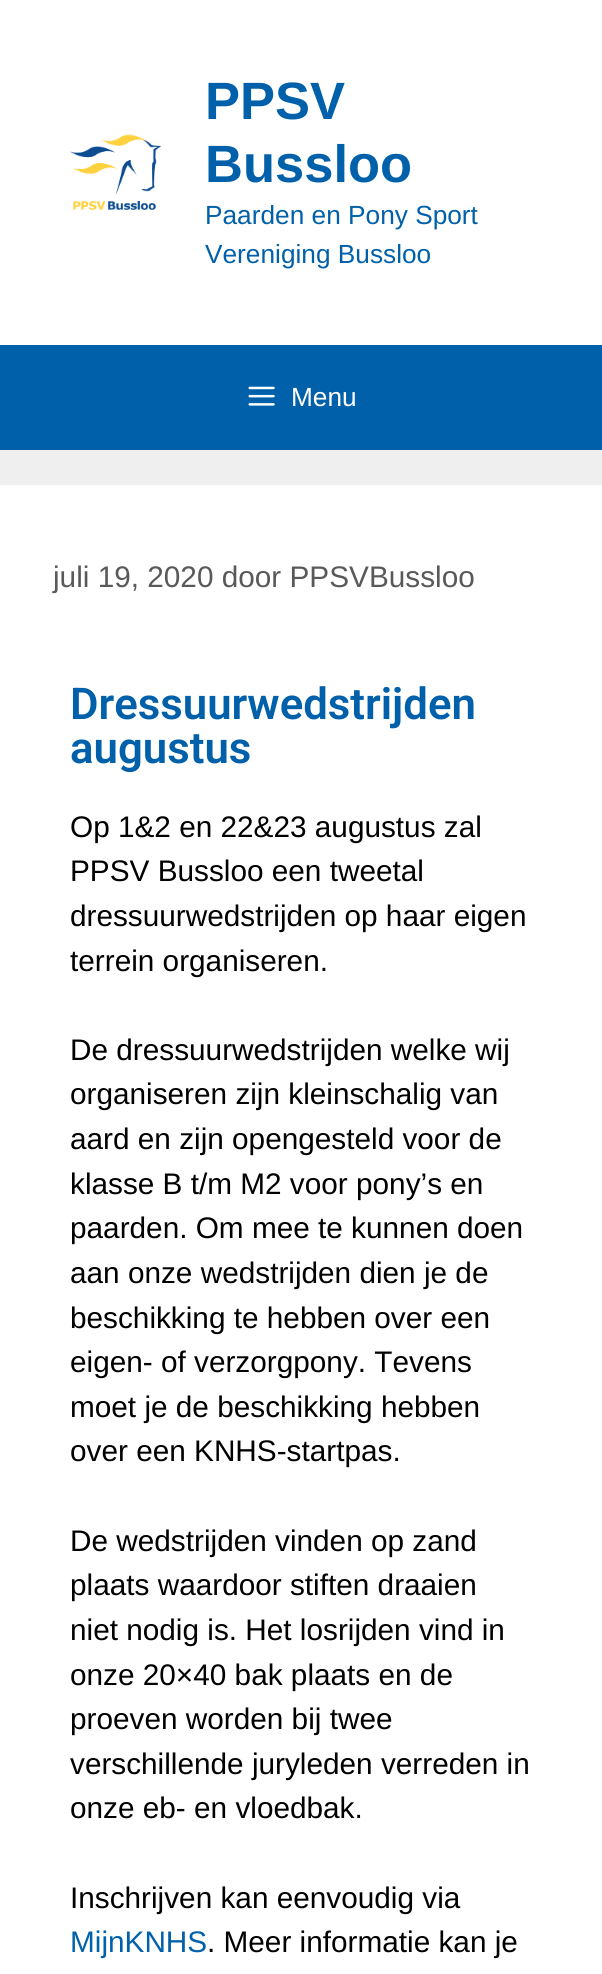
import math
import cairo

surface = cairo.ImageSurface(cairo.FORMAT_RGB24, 602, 1974)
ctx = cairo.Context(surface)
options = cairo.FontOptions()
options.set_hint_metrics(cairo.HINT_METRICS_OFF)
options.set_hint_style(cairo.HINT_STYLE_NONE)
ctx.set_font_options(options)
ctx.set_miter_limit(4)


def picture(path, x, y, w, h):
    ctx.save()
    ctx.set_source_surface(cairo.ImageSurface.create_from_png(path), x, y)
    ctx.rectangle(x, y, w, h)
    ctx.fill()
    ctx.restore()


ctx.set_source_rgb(0.937, 0.937, 0.937)
ctx.paint()
ctx.set_source_rgb(1, 1, 1)
ctx.rectangle(0, 0, 602, 345)
ctx.fill()
picture("img1.png", 70, 134, 91, 76)
ctx.select_font_face("Liberation Sans", cairo.FONT_SLANT_NORMAL, cairo.FONT_WEIGHT_BOLD)
ctx.set_font_size(52.5)
ctx.set_source_rgb(0, 0.38, 0.667)
ctx.move_to(205, 119)
ctx.show_text("PPSV")
ctx.move_to(205, 182)
ctx.show_text("Bussloo")
ctx.select_font_face("Liberation Sans")
ctx.set_font_size(26.25)
ctx.move_to(205, 224)
ctx.show_text("Paarden en Pony Sport")
ctx.move_to(205, 263)
ctx.show_text("Vereniging Bussloo")
ctx.rectangle(0, 345, 602, 105)
ctx.fill()
picture("img2.png", 248, 386, 27, 20)
ctx.set_source_rgb(1, 1, 1)
ctx.move_to(291, 406)
ctx.show_text("Menu")
ctx.rectangle(0, 485, 602, 1489)
ctx.fill()
ctx.set_font_size(29.75)
ctx.set_source_rgb(0.349, 0.349, 0.349)
ctx.move_to(53, 587)
ctx.show_text("juli 19, 2020 door PPSVBussloo")
ctx.select_font_face("Roboto SemiBold")
ctx.set_font_size(43.75)
ctx.set_source_rgb(0, 0.38, 0.667)
ctx.move_to(70, 719)
ctx.show_text("Dressuurwedstrijden")
ctx.move_to(70, 763)
ctx.show_text("augustus")
ctx.select_font_face("Liberation Sans")
ctx.set_font_size(29.75)
ctx.set_source_rgb(0, 0, 0)
ctx.move_to(70, 837)
ctx.show_text("Op 1&2 en 22&23 augustus zal")
ctx.move_to(70, 881)
ctx.show_text("PPSV Bussloo een tweetal")
ctx.move_to(70, 926)
ctx.show_text("dressuurwedstrijden op haar eigen")
ctx.move_to(70, 971)
ctx.show_text("terrein organiseren.")
ctx.move_to(70, 1060)
ctx.show_text("De dressuurwedstrijden welke wij")
ctx.move_to(70, 1104)
ctx.show_text("organiseren zijn kleinschalig van")
ctx.move_to(70, 1149)
ctx.show_text("aard en zijn opengesteld voor de")
ctx.move_to(70, 1194)
ctx.show_text("klasse B t/m M2 voor pony’s en")
ctx.move_to(70, 1238)
ctx.show_text("paarden. Om mee te kunnen doen")
ctx.move_to(70, 1283)
ctx.show_text("aan onze wedstrijden dien je de")
ctx.move_to(70, 1328)
ctx.show_text("beschikking te hebben over een")
ctx.move_to(70, 1372)
ctx.show_text("eigen- of verzorgpony. Tevens")
ctx.move_to(70, 1417)
ctx.show_text("moet je de beschikking hebben")
ctx.move_to(70, 1461)
ctx.show_text("over een KNHS-startpas.")
ctx.move_to(70, 1551)
ctx.show_text("De wedstrijden vinden op zand")
ctx.move_to(70, 1595)
ctx.show_text("plaats waardoor stiften draaien")
ctx.move_to(70, 1640)
ctx.show_text("niet nodig is. Het losrijden vind in")
ctx.move_to(70, 1685)
ctx.show_text("onze 20×40 bak plaats en de")
ctx.move_to(70, 1729)
ctx.show_text("proeven worden bij twee")
ctx.move_to(70, 1774)
ctx.show_text("verschillende juryleden verreden in")
ctx.move_to(70, 1818)
ctx.show_text("onze eb- en vloedbak.")
ctx.move_to(70, 1908)
ctx.show_text("Inschrijven kan eenvoudig via")
ctx.set_source_rgb(0, 0.38, 0.667)
ctx.move_to(70, 1952)
ctx.show_text("MijnKNHS")
ctx.set_source_rgb(0, 0, 0)
ctx.move_to(207, 1952)
ctx.show_text(". Meer informatie kan je")
surface.write_to_png("page.png")
